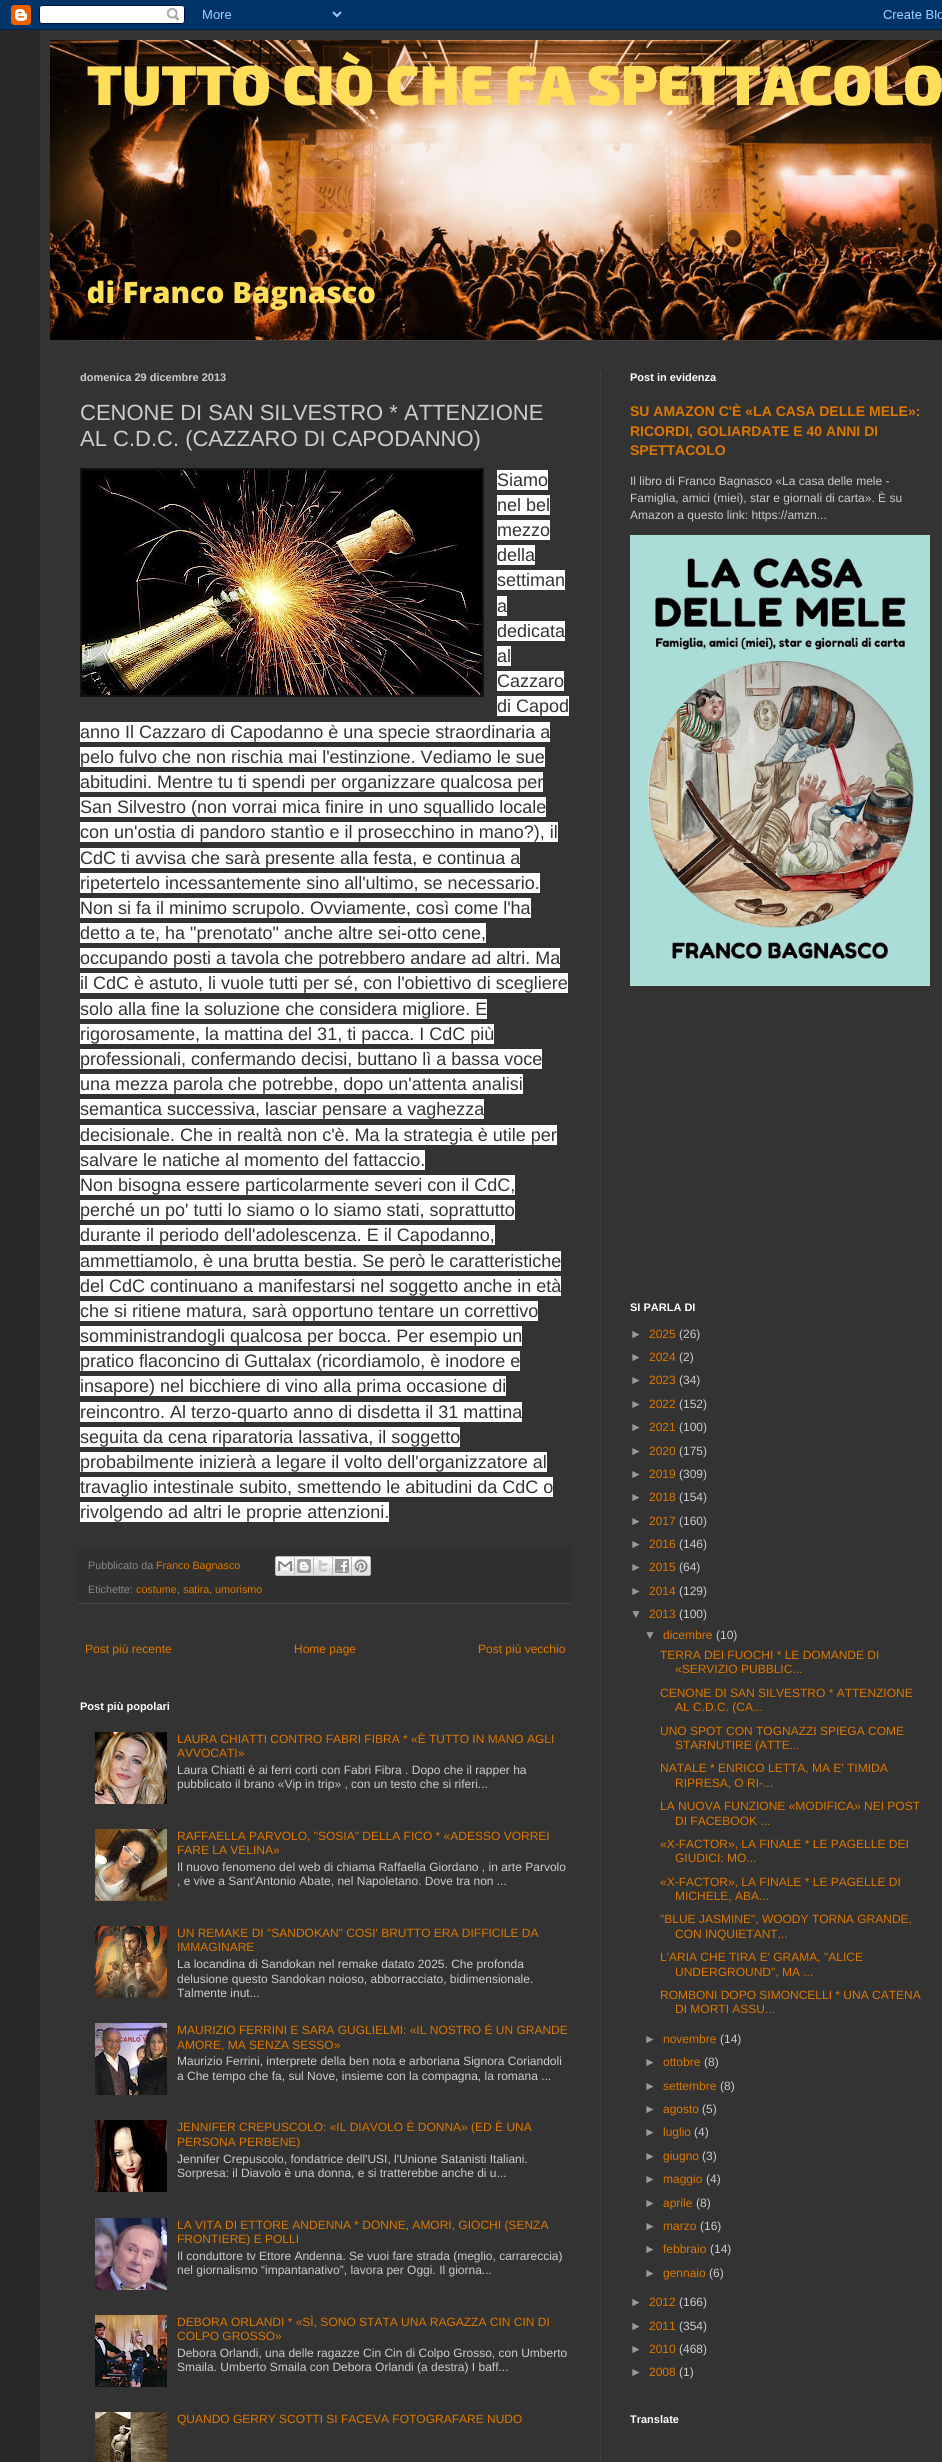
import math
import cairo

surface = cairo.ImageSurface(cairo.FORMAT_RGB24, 942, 2462)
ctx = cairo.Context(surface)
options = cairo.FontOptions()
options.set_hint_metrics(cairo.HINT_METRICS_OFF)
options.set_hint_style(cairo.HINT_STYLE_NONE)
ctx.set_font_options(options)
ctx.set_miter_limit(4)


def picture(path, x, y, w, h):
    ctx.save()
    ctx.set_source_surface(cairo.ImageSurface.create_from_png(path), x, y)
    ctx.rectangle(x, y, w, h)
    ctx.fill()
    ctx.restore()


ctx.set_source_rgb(0.161, 0.161, 0.161)
ctx.paint()
picture("img1.png", 0, 0, 942, 30)
ctx.set_source_rgb(0.2, 0.2, 0.2)
ctx.rectangle(40, 30, 902, 2432)
ctx.fill()
picture("img2.png", 50, 40, 892, 300)
ctx.set_source_rgb(0.251, 0.251, 0.251)
ctx.rectangle(80, 340, 850, 1)
ctx.fill()
ctx.rectangle(600, 371, 1, 2091)
ctx.fill()
ctx.select_font_face("Liberation Sans", cairo.FONT_SLANT_NORMAL, cairo.FONT_WEIGHT_BOLD)
ctx.set_font_size(11)
ctx.set_source_rgb(0.8, 0.8, 0.8)
ctx.move_to(80, 381)
ctx.show_text("domenica 29 dicembre 2013")
ctx.select_font_face("Liberation Sans")
ctx.set_font_size(22)
ctx.move_to(80, 420)
ctx.show_text("CENONE DI SAN SILVESTRO * ATTENZIONE")
ctx.move_to(80, 446)
ctx.show_text("AL C.D.C. (CAZZARO DI CAPODANNO)")
ctx.set_source_rgb(0.067, 0.067, 0.067)
ctx.rectangle(80, 468, 404, 229)
ctx.fill()
picture("img3.png", 82, 470, 400, 225)
ctx.set_source_rgb(1, 1, 1)
ctx.rectangle(497, 470, 51, 20)
ctx.fill()
ctx.set_font_size(18)
ctx.set_source_rgb(0.2, 0.2, 0.2)
ctx.move_to(497, 486)
ctx.show_text("Siamo")
ctx.set_source_rgb(1, 1, 1)
ctx.rectangle(497, 495, 53, 20)
ctx.fill()
ctx.set_source_rgb(0.2, 0.2, 0.2)
ctx.move_to(497, 511)
ctx.show_text("nel bel")
ctx.set_source_rgb(1, 1, 1)
ctx.rectangle(497, 520, 53, 20)
ctx.fill()
ctx.set_source_rgb(0.2, 0.2, 0.2)
ctx.move_to(497, 536)
ctx.show_text("mezzo")
ctx.set_source_rgb(1, 1, 1)
ctx.rectangle(497, 545, 38, 20)
ctx.fill()
ctx.set_source_rgb(0.2, 0.2, 0.2)
ctx.move_to(497, 561)
ctx.show_text("della")
ctx.set_source_rgb(1, 1, 1)
ctx.rectangle(497, 570, 68, 20)
ctx.fill()
ctx.set_source_rgb(0.2, 0.2, 0.2)
ctx.move_to(497, 586)
ctx.show_text("settiman")
ctx.set_source_rgb(1, 1, 1)
ctx.rectangle(497, 596, 10, 20)
ctx.fill()
ctx.set_source_rgb(0.2, 0.2, 0.2)
ctx.move_to(497, 612)
ctx.show_text("a")
ctx.set_source_rgb(1, 1, 1)
ctx.rectangle(497, 621, 68, 20)
ctx.fill()
ctx.set_source_rgb(0.2, 0.2, 0.2)
ctx.move_to(497, 637)
ctx.show_text("dedicata")
ctx.set_source_rgb(1, 1, 1)
ctx.rectangle(497, 646, 14, 20)
ctx.fill()
ctx.set_source_rgb(0.2, 0.2, 0.2)
ctx.move_to(497, 662)
ctx.show_text("al")
ctx.set_source_rgb(1, 1, 1)
ctx.rectangle(497, 671, 67, 20)
ctx.fill()
ctx.set_source_rgb(0.2, 0.2, 0.2)
ctx.move_to(497, 687)
ctx.show_text("Cazzaro")
ctx.set_source_rgb(1, 1, 1)
ctx.rectangle(497, 696, 72, 20)
ctx.fill()
ctx.set_source_rgb(0.2, 0.2, 0.2)
ctx.move_to(497, 712)
ctx.show_text("di Capod")
ctx.set_source_rgb(1, 1, 1)
ctx.rectangle(80, 722, 470, 20)
ctx.fill()
ctx.set_source_rgb(0.2, 0.2, 0.2)
ctx.move_to(80, 738)
ctx.show_text("anno Il Cazzaro di Capodanno è una specie straordinaria a")
ctx.set_source_rgb(1, 1, 1)
ctx.rectangle(80, 747, 465, 20)
ctx.fill()
ctx.set_source_rgb(0.2, 0.2, 0.2)
ctx.move_to(80, 763)
ctx.show_text("pelo fulvo che non rischia mai l'estinzione. Vediamo le sue")
ctx.set_source_rgb(1, 1, 1)
ctx.rectangle(80, 772, 463, 20)
ctx.fill()
ctx.set_source_rgb(0.2, 0.2, 0.2)
ctx.move_to(80, 788)
ctx.show_text("abitudini. Mentre tu ti spendi per organizzare qualcosa per")
ctx.set_source_rgb(1, 1, 1)
ctx.rectangle(80, 797, 466, 20)
ctx.fill()
ctx.set_source_rgb(0.2, 0.2, 0.2)
ctx.move_to(80, 813)
ctx.show_text("San Silvestro (non vorrai mica finire in uno squallido locale")
ctx.set_source_rgb(1, 1, 1)
ctx.rectangle(80, 822, 478, 20)
ctx.fill()
ctx.set_source_rgb(0.2, 0.2, 0.2)
ctx.move_to(80, 838)
ctx.show_text("con un'ostia di pandoro stantìo e il prosecchino in mano?), il")
ctx.set_source_rgb(1, 1, 1)
ctx.rectangle(80, 848, 440, 20)
ctx.fill()
ctx.set_source_rgb(0.2, 0.2, 0.2)
ctx.move_to(80, 864)
ctx.show_text("CdC ti avvisa che sarà presente alla festa, e continua a")
ctx.set_source_rgb(1, 1, 1)
ctx.rectangle(80, 873, 460, 20)
ctx.fill()
ctx.set_source_rgb(0.2, 0.2, 0.2)
ctx.move_to(80, 889)
ctx.show_text("ripetertelo incessantemente sino all'ultimo, se necessario.")
ctx.set_source_rgb(1, 1, 1)
ctx.rectangle(80, 898, 451, 20)
ctx.fill()
ctx.set_source_rgb(0.2, 0.2, 0.2)
ctx.move_to(80, 914)
ctx.show_text("Non si fa il minimo scrupolo. Ovviamente, così come l'ha")
ctx.set_source_rgb(1, 1, 1)
ctx.rectangle(80, 923, 406, 20)
ctx.fill()
ctx.set_source_rgb(0.2, 0.2, 0.2)
ctx.move_to(80, 939)
ctx.show_text("detto a te, ha \"prenotato\" anche altre sei-otto cene,")
ctx.set_source_rgb(1, 1, 1)
ctx.rectangle(80, 948, 480, 20)
ctx.fill()
ctx.set_source_rgb(0.2, 0.2, 0.2)
ctx.move_to(80, 964)
ctx.show_text("occupando posti a tavola che potrebbero andare ad altri. Ma")
ctx.set_source_rgb(1, 1, 1)
ctx.rectangle(80, 973, 488, 20)
ctx.fill()
ctx.set_source_rgb(0.2, 0.2, 0.2)
ctx.move_to(80, 989)
ctx.show_text("il CdC è astuto, li vuole tutti per sé, con l'obiettivo di scegliere")
ctx.set_source_rgb(1, 1, 1)
ctx.rectangle(80, 999, 407, 20)
ctx.fill()
ctx.set_source_rgb(0.2, 0.2, 0.2)
ctx.move_to(80, 1015)
ctx.show_text("solo alla fine la soluzione che considera migliore. E")
ctx.set_source_rgb(1, 1, 1)
ctx.rectangle(80, 1024, 414, 20)
ctx.fill()
ctx.set_source_rgb(0.2, 0.2, 0.2)
ctx.move_to(80, 1040)
ctx.show_text("rigorosamente, la mattina del 31, ti pacca. I CdC più")
ctx.set_source_rgb(1, 1, 1)
ctx.rectangle(80, 1049, 462, 20)
ctx.fill()
ctx.set_source_rgb(0.2, 0.2, 0.2)
ctx.move_to(80, 1065)
ctx.show_text("professionali, confermando decisi, buttano lì a bassa voce")
ctx.set_source_rgb(1, 1, 1)
ctx.rectangle(80, 1074, 443, 20)
ctx.fill()
ctx.set_source_rgb(0.2, 0.2, 0.2)
ctx.move_to(80, 1090)
ctx.show_text("una mezza parola che potrebbe, dopo un'attenta analisi")
ctx.set_source_rgb(1, 1, 1)
ctx.rectangle(80, 1099, 404, 20)
ctx.fill()
ctx.set_source_rgb(0.2, 0.2, 0.2)
ctx.move_to(80, 1115)
ctx.show_text("semantica successiva, lasciar pensare a vaghezza")
ctx.set_source_rgb(1, 1, 1)
ctx.rectangle(80, 1125, 477, 20)
ctx.fill()
ctx.set_source_rgb(0.2, 0.2, 0.2)
ctx.move_to(80, 1141)
ctx.show_text("decisionale. Che in realtà non c'è. Ma la strategia è utile per")
ctx.set_source_rgb(1, 1, 1)
ctx.rectangle(80, 1150, 345, 20)
ctx.fill()
ctx.set_source_rgb(0.2, 0.2, 0.2)
ctx.move_to(80, 1166)
ctx.show_text("salvare le natiche al momento del fattaccio.")
ctx.set_source_rgb(1, 1, 1)
ctx.rectangle(80, 1175, 435, 20)
ctx.fill()
ctx.set_source_rgb(0.2, 0.2, 0.2)
ctx.move_to(80, 1191)
ctx.show_text("Non bisogna essere particolarmente severi con il CdC,")
ctx.set_source_rgb(1, 1, 1)
ctx.rectangle(80, 1200, 435, 20)
ctx.fill()
ctx.set_source_rgb(0.2, 0.2, 0.2)
ctx.move_to(80, 1216)
ctx.show_text("perché un po' tutti lo siamo o lo siamo stati, soprattutto")
ctx.set_source_rgb(1, 1, 1)
ctx.rectangle(80, 1225, 415, 20)
ctx.fill()
ctx.set_source_rgb(0.2, 0.2, 0.2)
ctx.move_to(80, 1241)
ctx.show_text("durante il periodo dell'adolescenza. E il Capodanno,")
ctx.set_source_rgb(1, 1, 1)
ctx.rectangle(80, 1251, 481, 20)
ctx.fill()
ctx.set_source_rgb(0.2, 0.2, 0.2)
ctx.move_to(80, 1267)
ctx.show_text("ammettiamolo, è una brutta bestia. Se però le caratteristiche")
ctx.set_source_rgb(1, 1, 1)
ctx.rectangle(80, 1276, 481, 20)
ctx.fill()
ctx.set_source_rgb(0.2, 0.2, 0.2)
ctx.move_to(80, 1292)
ctx.show_text("del CdC continuano a manifestarsi nel soggetto anche in età")
ctx.set_source_rgb(1, 1, 1)
ctx.rectangle(80, 1301, 458, 20)
ctx.fill()
ctx.set_source_rgb(0.2, 0.2, 0.2)
ctx.move_to(80, 1317)
ctx.show_text("che si ritiene matura, sarà opportuno tentare un correttivo")
ctx.set_source_rgb(1, 1, 1)
ctx.rectangle(80, 1326, 442, 20)
ctx.fill()
ctx.set_source_rgb(0.2, 0.2, 0.2)
ctx.move_to(80, 1342)
ctx.show_text("somministrandogli qualcosa per bocca. Per esempio un")
ctx.set_source_rgb(1, 1, 1)
ctx.rectangle(80, 1351, 440, 20)
ctx.fill()
ctx.set_source_rgb(0.2, 0.2, 0.2)
ctx.move_to(80, 1367)
ctx.show_text("pratico flaconcino di Guttalax (ricordiamolo, è inodore e")
ctx.set_source_rgb(1, 1, 1)
ctx.rectangle(80, 1376, 426, 20)
ctx.fill()
ctx.set_source_rgb(0.2, 0.2, 0.2)
ctx.move_to(80, 1392)
ctx.show_text("insapore) nel bicchiere di vino alla prima occasione di")
ctx.set_source_rgb(1, 1, 1)
ctx.rectangle(80, 1402, 442, 20)
ctx.fill()
ctx.set_source_rgb(0.2, 0.2, 0.2)
ctx.move_to(80, 1418)
ctx.show_text("reincontro. Al terzo-quarto anno di disdetta il 31 mattina")
ctx.set_source_rgb(1, 1, 1)
ctx.rectangle(80, 1427, 380, 20)
ctx.fill()
ctx.set_source_rgb(0.2, 0.2, 0.2)
ctx.move_to(80, 1443)
ctx.show_text("seguita da cena riparatoria lassativa, il soggetto")
ctx.set_source_rgb(1, 1, 1)
ctx.rectangle(80, 1452, 467, 20)
ctx.fill()
ctx.set_source_rgb(0.2, 0.2, 0.2)
ctx.move_to(80, 1468)
ctx.show_text("probabilmente inizierà a legare il volto dell'organizzatore al")
ctx.set_source_rgb(1, 1, 1)
ctx.rectangle(80, 1477, 473, 20)
ctx.fill()
ctx.set_source_rgb(0.2, 0.2, 0.2)
ctx.move_to(80, 1493)
ctx.show_text("travaglio intestinale subito, smettendo le abitudini da CdC o")
ctx.set_source_rgb(1, 1, 1)
ctx.rectangle(80, 1502, 309, 20)
ctx.fill()
ctx.set_source_rgb(0.2, 0.2, 0.2)
ctx.move_to(80, 1518)
ctx.show_text("rivolgendo ad altri le proprie attenzioni.")
ctx.set_source_rgb(0.188, 0.188, 0.188)
ctx.rectangle(78, 1546, 494, 57)
ctx.fill()
ctx.set_source_rgb(0.267, 0.267, 0.267)
ctx.rectangle(78, 1603, 494, 1)
ctx.fill()
ctx.set_font_size(10.75)
ctx.set_source_rgb(0.533, 0.533, 0.533)
ctx.move_to(88, 1569)
ctx.show_text("Pubblicato da")
ctx.set_source_rgb(0.867, 0.467, 0)
ctx.move_to(156, 1569)
ctx.show_text("Franco Bagnasco")
picture("img4.png", 275, 1556, 20, 20)
picture("img5.png", 295, 1556, 19, 20)
picture("img6.png", 314, 1556, 19, 20)
picture("img7.png", 333, 1556, 19, 20)
picture("img8.png", 352, 1556, 19, 20)
ctx.set_source_rgb(0.533, 0.533, 0.533)
ctx.move_to(88, 1593)
ctx.show_text("Etichette:")
ctx.set_source_rgb(0.867, 0.467, 0)
ctx.move_to(136, 1593)
ctx.show_text("costume")
ctx.set_source_rgb(0.533, 0.533, 0.533)
ctx.move_to(177, 1593)
ctx.show_text(",")
ctx.set_source_rgb(0.867, 0.467, 0)
ctx.move_to(183, 1593)
ctx.show_text("satira")
ctx.set_source_rgb(0.533, 0.533, 0.533)
ctx.move_to(209, 1593)
ctx.show_text(",")
ctx.set_source_rgb(0.867, 0.467, 0)
ctx.move_to(215, 1593)
ctx.show_text("umorismo")
ctx.set_font_size(12)
ctx.move_to(85, 1653)
ctx.show_text("Post più recente")
ctx.move_to(294, 1653)
ctx.show_text("Home page")
ctx.move_to(478, 1653)
ctx.show_text("Post più vecchio")
ctx.select_font_face("Liberation Sans", cairo.FONT_SLANT_NORMAL, cairo.FONT_WEIGHT_BOLD)
ctx.set_font_size(11)
ctx.set_source_rgb(1, 1, 1)
ctx.move_to(80, 1710)
ctx.show_text("Post più popolari")
picture("img9.png", 95, 1732, 72, 72)
ctx.select_font_face("Liberation Sans")
ctx.set_font_size(12)
ctx.set_source_rgb(0.867, 0.467, 0)
ctx.move_to(177, 1743)
ctx.show_text("LAURA CHIATTI CONTRO FABRI FIBRA * «È TUTTO IN MANO AGLI")
ctx.move_to(177, 1757)
ctx.show_text("AVVOCATI»")
ctx.set_source_rgb(0.8, 0.8, 0.8)
ctx.move_to(177, 1774)
ctx.show_text("Laura Chiatti è ai ferri corti con Fabri Fibra . Dopo che il rapper ha")
ctx.move_to(177, 1788)
ctx.show_text("pubblicato il brano «Vip in trip» , con un testo che si riferi...")
picture("img10.png", 95, 1829, 72, 72)
ctx.set_source_rgb(0.867, 0.467, 0)
ctx.move_to(177, 1840)
ctx.show_text("RAFFAELLA PARVOLO, \"SOSIA\" DELLA FICO * «ADESSO VORREI")
ctx.move_to(177, 1854)
ctx.show_text("FARE LA VELINA»")
ctx.set_source_rgb(0.8, 0.8, 0.8)
ctx.move_to(177, 1871)
ctx.show_text("Il nuovo fenomeno del web di chiama Raffaella Giordano , in arte Parvolo")
ctx.move_to(177, 1885)
ctx.show_text(", e vive a Sant'Antonio Abate, nel Napoletano. Dove tra non ...")
picture("img11.png", 95, 1926, 72, 72)
ctx.set_source_rgb(0.867, 0.467, 0)
ctx.move_to(177, 1937)
ctx.show_text("UN REMAKE DI \"SANDOKAN\" COSI' BRUTTO ERA DIFFICILE DA")
ctx.move_to(177, 1951)
ctx.show_text("IMMAGINARE")
ctx.set_source_rgb(0.8, 0.8, 0.8)
ctx.move_to(177, 1968)
ctx.show_text("La locandina di Sandokan nel remake datato 2025. Che profonda")
ctx.move_to(177, 1983)
ctx.show_text("delusione questo Sandokan noioso, abborracciato, bidimensionale.")
ctx.move_to(177, 1997)
ctx.show_text("Talmente inut...")
picture("img12.png", 95, 2023, 72, 72)
ctx.set_source_rgb(0.867, 0.467, 0)
ctx.move_to(177, 2034)
ctx.show_text("MAURIZIO FERRINI E SARA GUGLIELMI: «IL NOSTRO È UN GRANDE")
ctx.move_to(177, 2049)
ctx.show_text("AMORE, MA SENZA SESSO»")
ctx.set_source_rgb(0.8, 0.8, 0.8)
ctx.move_to(177, 2065)
ctx.show_text("Maurizio Ferrini, interprete della ben nota e arboriana Signora Coriandoli")
ctx.move_to(177, 2080)
ctx.show_text("a Che tempo che fa, sul Nove, insieme con la compagna, la romana ...")
picture("img13.png", 95, 2120, 72, 72)
ctx.set_source_rgb(0.867, 0.467, 0)
ctx.move_to(177, 2131)
ctx.show_text("JENNIFER CREPUSCOLO: «IL DIAVOLO È DONNA» (ED È UNA")
ctx.move_to(177, 2146)
ctx.show_text("PERSONA PERBENE)")
ctx.set_source_rgb(0.8, 0.8, 0.8)
ctx.move_to(177, 2163)
ctx.show_text("Jennifer Crepuscolo, fondatrice dell'USI, l'Unione Satanisti Italiani.")
ctx.move_to(177, 2177)
ctx.show_text("Sorpresa: il Diavolo è una donna, e si tratterebbe anche di u...")
picture("img14.png", 95, 2218, 72, 72)
ctx.set_source_rgb(0.867, 0.467, 0)
ctx.move_to(177, 2229)
ctx.show_text("LA VITA DI ETTORE ANDENNA * DONNE, AMORI, GIOCHI (SENZA")
ctx.move_to(177, 2243)
ctx.show_text("FRONTIERE) E POLLI")
ctx.set_source_rgb(0.8, 0.8, 0.8)
ctx.move_to(177, 2260)
ctx.show_text("Il conduttore tv Ettore Andenna. Se vuoi fare strada (meglio, carrareccia)")
ctx.move_to(177, 2274)
ctx.show_text("nel giornalismo “impantanativo”, lavora per Oggi. Il giorna...")
picture("img15.png", 95, 2315, 72, 72)
ctx.set_source_rgb(0.867, 0.467, 0)
ctx.move_to(177, 2326)
ctx.show_text("DEBORA ORLANDI * «SÌ, SONO STATA UNA RAGAZZA CIN CIN DI")
ctx.move_to(177, 2340)
ctx.show_text("COLPO GROSSO»")
ctx.set_source_rgb(0.8, 0.8, 0.8)
ctx.move_to(177, 2357)
ctx.show_text("Debora Orlandi, una delle ragazze Cin Cin di Colpo Grosso, con Umberto")
ctx.move_to(177, 2371)
ctx.show_text("Smaila. Umberto Smaila con Debora Orlandi (a destra) I baff...")
picture("img16.png", 95, 2412, 72, 50)
ctx.set_source_rgb(0.867, 0.467, 0)
ctx.move_to(177, 2423)
ctx.show_text("QUANDO GERRY SCOTTI SI FACEVA FOTOGRAFARE NUDO")
ctx.select_font_face("Liberation Sans", cairo.FONT_SLANT_NORMAL, cairo.FONT_WEIGHT_BOLD)
ctx.set_font_size(11)
ctx.set_source_rgb(1, 1, 1)
ctx.move_to(630, 381)
ctx.show_text("Post in evidenza")
ctx.set_font_size(14)
ctx.set_source_rgb(0.867, 0.467, 0)
ctx.move_to(630, 416)
ctx.show_text("SU AMAZON C'È «LA CASA DELLE MELE»:")
ctx.move_to(630, 436)
ctx.show_text("RICORDI, GOLIARDATE E 40 ANNI DI")
ctx.move_to(630, 455)
ctx.show_text("SPETTACOLO")
ctx.select_font_face("Liberation Sans")
ctx.set_font_size(12)
ctx.set_source_rgb(0.8, 0.8, 0.8)
ctx.move_to(630, 485)
ctx.show_text("Il libro di Franco Bagnasco «La casa delle mele -")
ctx.move_to(630, 502)
ctx.show_text("Famiglia, amici (miei), star e giornali di carta». È su")
ctx.move_to(630, 519)
ctx.show_text("Amazon a questo link: https://amzn...")
picture("img17.png", 630, 535, 300, 451)
ctx.select_font_face("Liberation Sans", cairo.FONT_SLANT_NORMAL, cairo.FONT_WEIGHT_BOLD)
ctx.set_font_size(11)
ctx.set_source_rgb(1, 1, 1)
ctx.move_to(630, 1311)
ctx.show_text("SI PARLA DI")
ctx.select_font_face("Liberation Sans")
ctx.set_font_size(12)
ctx.set_source_rgb(0.6, 0.6, 0.6)
ctx.move_to(630, 1338)
ctx.show_text("►")
ctx.set_source_rgb(0.867, 0.467, 0)
ctx.move_to(649, 1338)
ctx.show_text("2025")
ctx.set_source_rgb(0.8, 0.8, 0.8)
ctx.move_to(679, 1338)
ctx.show_text("(26)")
ctx.set_source_rgb(0.6, 0.6, 0.6)
ctx.move_to(630, 1361)
ctx.show_text("►")
ctx.set_source_rgb(0.867, 0.467, 0)
ctx.move_to(649, 1361)
ctx.show_text("2024")
ctx.set_source_rgb(0.8, 0.8, 0.8)
ctx.move_to(679, 1361)
ctx.show_text("(2)")
ctx.set_source_rgb(0.6, 0.6, 0.6)
ctx.move_to(630, 1384)
ctx.show_text("►")
ctx.set_source_rgb(0.867, 0.467, 0)
ctx.move_to(649, 1384)
ctx.show_text("2023")
ctx.set_source_rgb(0.8, 0.8, 0.8)
ctx.move_to(679, 1384)
ctx.show_text("(34)")
ctx.set_source_rgb(0.6, 0.6, 0.6)
ctx.move_to(630, 1408)
ctx.show_text("►")
ctx.set_source_rgb(0.867, 0.467, 0)
ctx.move_to(649, 1408)
ctx.show_text("2022")
ctx.set_source_rgb(0.8, 0.8, 0.8)
ctx.move_to(679, 1408)
ctx.show_text("(152)")
ctx.set_source_rgb(0.6, 0.6, 0.6)
ctx.move_to(630, 1431)
ctx.show_text("►")
ctx.set_source_rgb(0.867, 0.467, 0)
ctx.move_to(649, 1431)
ctx.show_text("2021")
ctx.set_source_rgb(0.8, 0.8, 0.8)
ctx.move_to(679, 1431)
ctx.show_text("(100)")
ctx.set_source_rgb(0.6, 0.6, 0.6)
ctx.move_to(630, 1455)
ctx.show_text("►")
ctx.set_source_rgb(0.867, 0.467, 0)
ctx.move_to(649, 1455)
ctx.show_text("2020")
ctx.set_source_rgb(0.8, 0.8, 0.8)
ctx.move_to(679, 1455)
ctx.show_text("(175)")
ctx.set_source_rgb(0.6, 0.6, 0.6)
ctx.move_to(630, 1478)
ctx.show_text("►")
ctx.set_source_rgb(0.867, 0.467, 0)
ctx.move_to(649, 1478)
ctx.show_text("2019")
ctx.set_source_rgb(0.8, 0.8, 0.8)
ctx.move_to(679, 1478)
ctx.show_text("(309)")
ctx.set_source_rgb(0.6, 0.6, 0.6)
ctx.move_to(630, 1501)
ctx.show_text("►")
ctx.set_source_rgb(0.867, 0.467, 0)
ctx.move_to(649, 1501)
ctx.show_text("2018")
ctx.set_source_rgb(0.8, 0.8, 0.8)
ctx.move_to(679, 1501)
ctx.show_text("(154)")
ctx.set_source_rgb(0.6, 0.6, 0.6)
ctx.move_to(630, 1525)
ctx.show_text("►")
ctx.set_source_rgb(0.867, 0.467, 0)
ctx.move_to(649, 1525)
ctx.show_text("2017")
ctx.set_source_rgb(0.8, 0.8, 0.8)
ctx.move_to(679, 1525)
ctx.show_text("(160)")
ctx.set_source_rgb(0.6, 0.6, 0.6)
ctx.move_to(630, 1548)
ctx.show_text("►")
ctx.set_source_rgb(0.867, 0.467, 0)
ctx.move_to(649, 1548)
ctx.show_text("2016")
ctx.set_source_rgb(0.8, 0.8, 0.8)
ctx.move_to(679, 1548)
ctx.show_text("(146)")
ctx.set_source_rgb(0.6, 0.6, 0.6)
ctx.move_to(630, 1571)
ctx.show_text("►")
ctx.set_source_rgb(0.867, 0.467, 0)
ctx.move_to(649, 1571)
ctx.show_text("2015")
ctx.set_source_rgb(0.8, 0.8, 0.8)
ctx.move_to(679, 1571)
ctx.show_text("(64)")
ctx.set_source_rgb(0.6, 0.6, 0.6)
ctx.move_to(630, 1595)
ctx.show_text("►")
ctx.set_source_rgb(0.867, 0.467, 0)
ctx.move_to(649, 1595)
ctx.show_text("2014")
ctx.set_source_rgb(0.8, 0.8, 0.8)
ctx.move_to(679, 1595)
ctx.show_text("(129)")
ctx.set_source_rgb(0.6, 0.6, 0.6)
ctx.move_to(630, 1618)
ctx.show_text("▼")
ctx.set_source_rgb(0.867, 0.467, 0)
ctx.move_to(649, 1618)
ctx.show_text("2013")
ctx.set_source_rgb(0.8, 0.8, 0.8)
ctx.move_to(679, 1618)
ctx.show_text("(100)")
ctx.set_source_rgb(0.6, 0.6, 0.6)
ctx.move_to(644, 1639)
ctx.show_text("▼")
ctx.set_source_rgb(0.867, 0.467, 0)
ctx.move_to(663, 1639)
ctx.show_text("dicembre")
ctx.set_source_rgb(0.8, 0.8, 0.8)
ctx.move_to(716, 1639)
ctx.show_text("(10)")
ctx.set_source_rgb(0.867, 0.467, 0)
ctx.move_to(660, 1659)
ctx.show_text("TERRA DEI FUOCHI * LE DOMANDE DI")
ctx.move_to(675, 1673)
ctx.show_text("«SERVIZIO PUBBLIC...")
ctx.move_to(660, 1697)
ctx.show_text("CENONE DI SAN SILVESTRO * ATTENZIONE")
ctx.move_to(675, 1711)
ctx.show_text("AL C.D.C. (CA...")
ctx.move_to(660, 1735)
ctx.show_text("UNO SPOT CON TOGNAZZI SPIEGA COME")
ctx.move_to(675, 1749)
ctx.show_text("STARNUTIRE (ATTE...")
ctx.move_to(660, 1772)
ctx.show_text("NATALE * ENRICO LETTA, MA E' TIMIDA")
ctx.move_to(675, 1787)
ctx.show_text("RIPRESA, O RI-...")
ctx.move_to(660, 1810)
ctx.show_text("LA NUOVA FUNZIONE «MODIFICA» NEI POST")
ctx.move_to(675, 1825)
ctx.show_text("DI FACEBOOK ...")
ctx.move_to(660, 1848)
ctx.show_text("«X-FACTOR», LA FINALE * LE PAGELLE DEI")
ctx.move_to(675, 1862)
ctx.show_text("GIUDICI: MO...")
ctx.move_to(660, 1886)
ctx.show_text("«X-FACTOR», LA FINALE * LE PAGELLE DI")
ctx.move_to(675, 1900)
ctx.show_text("MICHELE, ABA...")
ctx.move_to(660, 1923)
ctx.show_text("\"BLUE JASMINE\", WOODY TORNA GRANDE,")
ctx.move_to(675, 1938)
ctx.show_text("CON INQUIETANT...")
ctx.move_to(660, 1961)
ctx.show_text("L'ARIA CHE TIRA E' GRAMA, \"ALICE")
ctx.move_to(675, 1976)
ctx.show_text("UNDERGROUND\", MA ...")
ctx.move_to(660, 1999)
ctx.show_text("ROMBONI DOPO SIMONCELLI * UNA CATENA")
ctx.move_to(675, 2013)
ctx.show_text("DI MORTI ASSU...")
ctx.set_source_rgb(0.6, 0.6, 0.6)
ctx.move_to(644, 2043)
ctx.show_text("►")
ctx.set_source_rgb(0.867, 0.467, 0)
ctx.move_to(663, 2043)
ctx.show_text("novembre")
ctx.set_source_rgb(0.8, 0.8, 0.8)
ctx.move_to(720, 2043)
ctx.show_text("(14)")
ctx.set_source_rgb(0.6, 0.6, 0.6)
ctx.move_to(644, 2066)
ctx.show_text("►")
ctx.set_source_rgb(0.867, 0.467, 0)
ctx.move_to(663, 2066)
ctx.show_text("ottobre")
ctx.set_source_rgb(0.8, 0.8, 0.8)
ctx.move_to(704, 2066)
ctx.show_text("(8)")
ctx.set_source_rgb(0.6, 0.6, 0.6)
ctx.move_to(644, 2090)
ctx.show_text("►")
ctx.set_source_rgb(0.867, 0.467, 0)
ctx.move_to(663, 2090)
ctx.show_text("settembre")
ctx.set_source_rgb(0.8, 0.8, 0.8)
ctx.move_to(720, 2090)
ctx.show_text("(8)")
ctx.set_source_rgb(0.6, 0.6, 0.6)
ctx.move_to(644, 2113)
ctx.show_text("►")
ctx.set_source_rgb(0.867, 0.467, 0)
ctx.move_to(663, 2113)
ctx.show_text("agosto")
ctx.set_source_rgb(0.8, 0.8, 0.8)
ctx.move_to(702, 2113)
ctx.show_text("(5)")
ctx.set_source_rgb(0.6, 0.6, 0.6)
ctx.move_to(644, 2136)
ctx.show_text("►")
ctx.set_source_rgb(0.867, 0.467, 0)
ctx.move_to(663, 2136)
ctx.show_text("luglio")
ctx.set_source_rgb(0.8, 0.8, 0.8)
ctx.move_to(694, 2136)
ctx.show_text("(4)")
ctx.set_source_rgb(0.6, 0.6, 0.6)
ctx.move_to(644, 2160)
ctx.show_text("►")
ctx.set_source_rgb(0.867, 0.467, 0)
ctx.move_to(663, 2160)
ctx.show_text("giugno")
ctx.set_source_rgb(0.8, 0.8, 0.8)
ctx.move_to(702, 2160)
ctx.show_text("(3)")
ctx.set_source_rgb(0.6, 0.6, 0.6)
ctx.move_to(644, 2183)
ctx.show_text("►")
ctx.set_source_rgb(0.867, 0.467, 0)
ctx.move_to(663, 2183)
ctx.show_text("maggio")
ctx.set_source_rgb(0.8, 0.8, 0.8)
ctx.move_to(706, 2183)
ctx.show_text("(4)")
ctx.set_source_rgb(0.6, 0.6, 0.6)
ctx.move_to(644, 2207)
ctx.show_text("►")
ctx.set_source_rgb(0.867, 0.467, 0)
ctx.move_to(663, 2207)
ctx.show_text("aprile")
ctx.set_source_rgb(0.8, 0.8, 0.8)
ctx.move_to(696, 2207)
ctx.show_text("(8)")
ctx.set_source_rgb(0.6, 0.6, 0.6)
ctx.move_to(644, 2230)
ctx.show_text("►")
ctx.set_source_rgb(0.867, 0.467, 0)
ctx.move_to(663, 2230)
ctx.show_text("marzo")
ctx.set_source_rgb(0.8, 0.8, 0.8)
ctx.move_to(700, 2230)
ctx.show_text("(16)")
ctx.set_source_rgb(0.6, 0.6, 0.6)
ctx.move_to(644, 2253)
ctx.show_text("►")
ctx.set_source_rgb(0.867, 0.467, 0)
ctx.move_to(663, 2253)
ctx.show_text("febbraio")
ctx.set_source_rgb(0.8, 0.8, 0.8)
ctx.move_to(710, 2253)
ctx.show_text("(14)")
ctx.set_source_rgb(0.6, 0.6, 0.6)
ctx.move_to(644, 2277)
ctx.show_text("►")
ctx.set_source_rgb(0.867, 0.467, 0)
ctx.move_to(663, 2277)
ctx.show_text("gennaio")
ctx.set_source_rgb(0.8, 0.8, 0.8)
ctx.move_to(709, 2277)
ctx.show_text("(6)")
ctx.set_source_rgb(0.6, 0.6, 0.6)
ctx.move_to(630, 2306)
ctx.show_text("►")
ctx.set_source_rgb(0.867, 0.467, 0)
ctx.move_to(649, 2306)
ctx.show_text("2012")
ctx.set_source_rgb(0.8, 0.8, 0.8)
ctx.move_to(679, 2306)
ctx.show_text("(166)")
ctx.set_source_rgb(0.6, 0.6, 0.6)
ctx.move_to(630, 2330)
ctx.show_text("►")
ctx.set_source_rgb(0.867, 0.467, 0)
ctx.move_to(649, 2330)
ctx.show_text("2011")
ctx.set_source_rgb(0.8, 0.8, 0.8)
ctx.move_to(679, 2330)
ctx.show_text("(354)")
ctx.set_source_rgb(0.6, 0.6, 0.6)
ctx.move_to(630, 2353)
ctx.show_text("►")
ctx.set_source_rgb(0.867, 0.467, 0)
ctx.move_to(649, 2353)
ctx.show_text("2010")
ctx.set_source_rgb(0.8, 0.8, 0.8)
ctx.move_to(679, 2353)
ctx.show_text("(468)")
ctx.set_source_rgb(0.6, 0.6, 0.6)
ctx.move_to(630, 2376)
ctx.show_text("►")
ctx.set_source_rgb(0.867, 0.467, 0)
ctx.move_to(649, 2376)
ctx.show_text("2008")
ctx.set_source_rgb(0.8, 0.8, 0.8)
ctx.move_to(679, 2376)
ctx.show_text("(1)")
ctx.select_font_face("Liberation Sans", cairo.FONT_SLANT_NORMAL, cairo.FONT_WEIGHT_BOLD)
ctx.set_font_size(11)
ctx.set_source_rgb(1, 1, 1)
ctx.move_to(630, 2423)
ctx.show_text("Translate")
surface.write_to_png("page.png")
